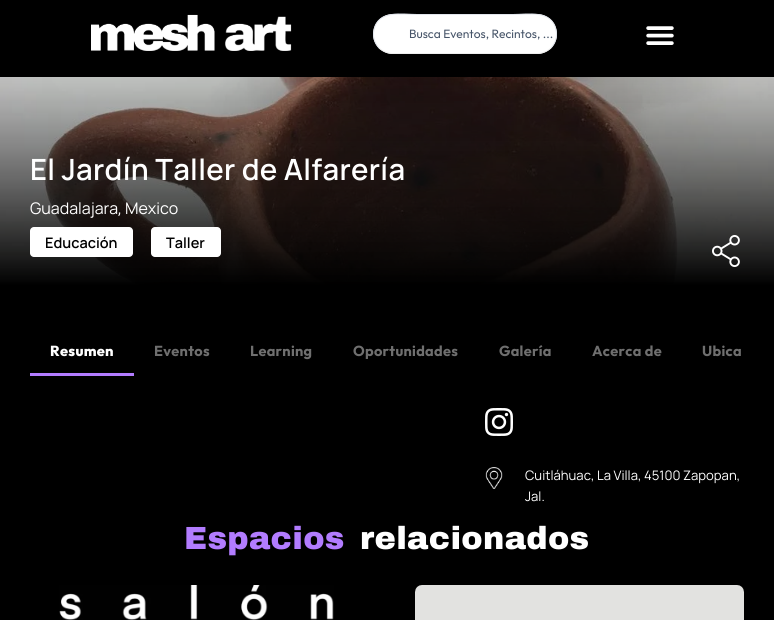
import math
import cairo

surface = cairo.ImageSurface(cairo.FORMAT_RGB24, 774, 620)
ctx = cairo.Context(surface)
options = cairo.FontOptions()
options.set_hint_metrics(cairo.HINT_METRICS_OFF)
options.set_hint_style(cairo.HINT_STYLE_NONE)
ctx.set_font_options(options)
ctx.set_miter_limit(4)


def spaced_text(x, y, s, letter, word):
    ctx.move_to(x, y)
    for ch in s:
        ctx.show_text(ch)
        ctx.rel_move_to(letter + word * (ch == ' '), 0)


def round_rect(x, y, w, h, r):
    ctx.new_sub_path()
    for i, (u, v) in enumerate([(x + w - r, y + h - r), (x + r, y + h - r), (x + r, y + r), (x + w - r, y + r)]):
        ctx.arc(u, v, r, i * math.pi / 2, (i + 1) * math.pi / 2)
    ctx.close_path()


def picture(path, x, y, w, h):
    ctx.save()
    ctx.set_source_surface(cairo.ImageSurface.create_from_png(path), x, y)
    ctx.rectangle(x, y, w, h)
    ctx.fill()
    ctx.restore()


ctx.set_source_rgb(0, 0, 0)
ctx.paint()
picture("img1.png", 91, 14, 201, 37)
ctx.set_source_rgb(1, 1, 1)
round_rect(373, 14, 184, 40, 20)
ctx.fill()
ctx.new_path()
ctx.move_to(551, 48)
ctx.curve_to(547, 51.5, 542, 53.5, 537, 53.5)
ctx.line_to(393, 53.5)
ctx.curve_to(388, 53.5, 383, 51.5, 379, 48)
ctx.set_source_rgb(0.933, 0.933, 0.933)
ctx.set_line_width(1)
ctx.stroke()
ctx.new_path()
ctx.move_to(379, 48)
ctx.curve_to(374.5, 43, 372.5, 36.5, 374, 30)
ctx.curve_to(378, 9.5, 402, 14.5, 417, 14.5)
ctx.line_to(513, 14.5)
ctx.curve_to(528, 14.5, 552, 9.5, 556, 30)
ctx.curve_to(557.5, 36.5, 555.5, 43, 551, 48)
ctx.set_source_rgb(0.882, 0.898, 0.922)
ctx.stroke()
ctx.select_font_face("Outfit")
ctx.set_font_size(12)
ctx.set_source_rgb(0.278, 0.333, 0.412)
ctx.move_to(409, 38)
ctx.show_text("Busca Eventos, Recintos, ...")
picture("img2.png", 646, 26, 28, 19)
picture("img3.png", 0, 77, 774, 230)
ctx.select_font_face("Manrope SemiBold")
ctx.set_font_size(29.25)
ctx.set_source_rgb(1, 1, 1)
spaced_text(30, 180, "El Jardín Taller de Alfarería", 0.3, 0)
ctx.select_font_face("Manrope")
ctx.set_font_size(16)
ctx.move_to(30, 214)
ctx.show_text("Guadalajara")
ctx.select_font_face("Roboto")
ctx.set_font_size(14.5)
ctx.move_to(118, 214)
ctx.show_text(",")
ctx.select_font_face("Manrope")
ctx.set_font_size(16)
ctx.move_to(125, 214)
ctx.show_text("Mexico")
round_rect(30, 227, 103, 30, 4)
ctx.fill()
ctx.select_font_face("Manrope SemiBold")
ctx.set_font_size(14.5)
ctx.set_source_rgb(0, 0, 0)
ctx.move_to(45, 248)
ctx.show_text("Educación")
ctx.set_source_rgb(1, 1, 1)
round_rect(151, 227, 70, 30, 4)
ctx.fill()
ctx.set_source_rgb(0, 0, 0)
ctx.move_to(166, 248)
ctx.show_text("Taller")
picture("img4.png", 712, 235, 28, 32)
ctx.set_source_rgb(0.698, 0.486, 1)
ctx.rectangle(30, 373, 104, 3)
ctx.fill()
ctx.select_font_face("Outfit ExtraBold")
ctx.set_source_rgb(1, 1, 1)
spaced_text(50, 356, "Resumen", 0.3, 0)
ctx.select_font_face("Outfit", cairo.FONT_SLANT_NORMAL, cairo.FONT_WEIGHT_BOLD)
ctx.set_source_rgb(0.435, 0.435, 0.435)
spaced_text(154, 356, "Eventos", 0.3, 0)
spaced_text(250, 356, "Learning", 0.3, 0)
spaced_text(353, 356, "Oportunidades", 0.3, 0)
spaced_text(499, 356, "Galería", 0.3, 0)
spaced_text(592, 356, "Acerca de", 0.3, 0)
spaced_text(702, 356, "Ubica", 0.3, 0)
picture("img5.png", 485, 408, 28, 28)
picture("img6.png", 485, 467, 18, 22)
ctx.select_font_face("Manrope")
ctx.set_font_size(13.1)
ctx.set_source_rgb(1, 1, 1)
ctx.move_to(525, 480)
ctx.show_text("Cuitláhuac, La Villa, 45100 Zapopan,")
ctx.move_to(525, 501)
ctx.show_text("Jal.")
ctx.select_font_face("Archivo Black Black")
ctx.set_font_size(32)
ctx.set_source_rgb(0.698, 0.486, 1)
spaced_text(184, 549, "Espacios", 0.3, 0)
ctx.set_source_rgb(1, 1, 1)
spaced_text(360, 549, "relacionados", 0.3, 0)
picture("img7.png", 59, 585, 275, 35)
picture("img8.png", 415, 585, 329, 35)
surface.write_to_png("page.png")
